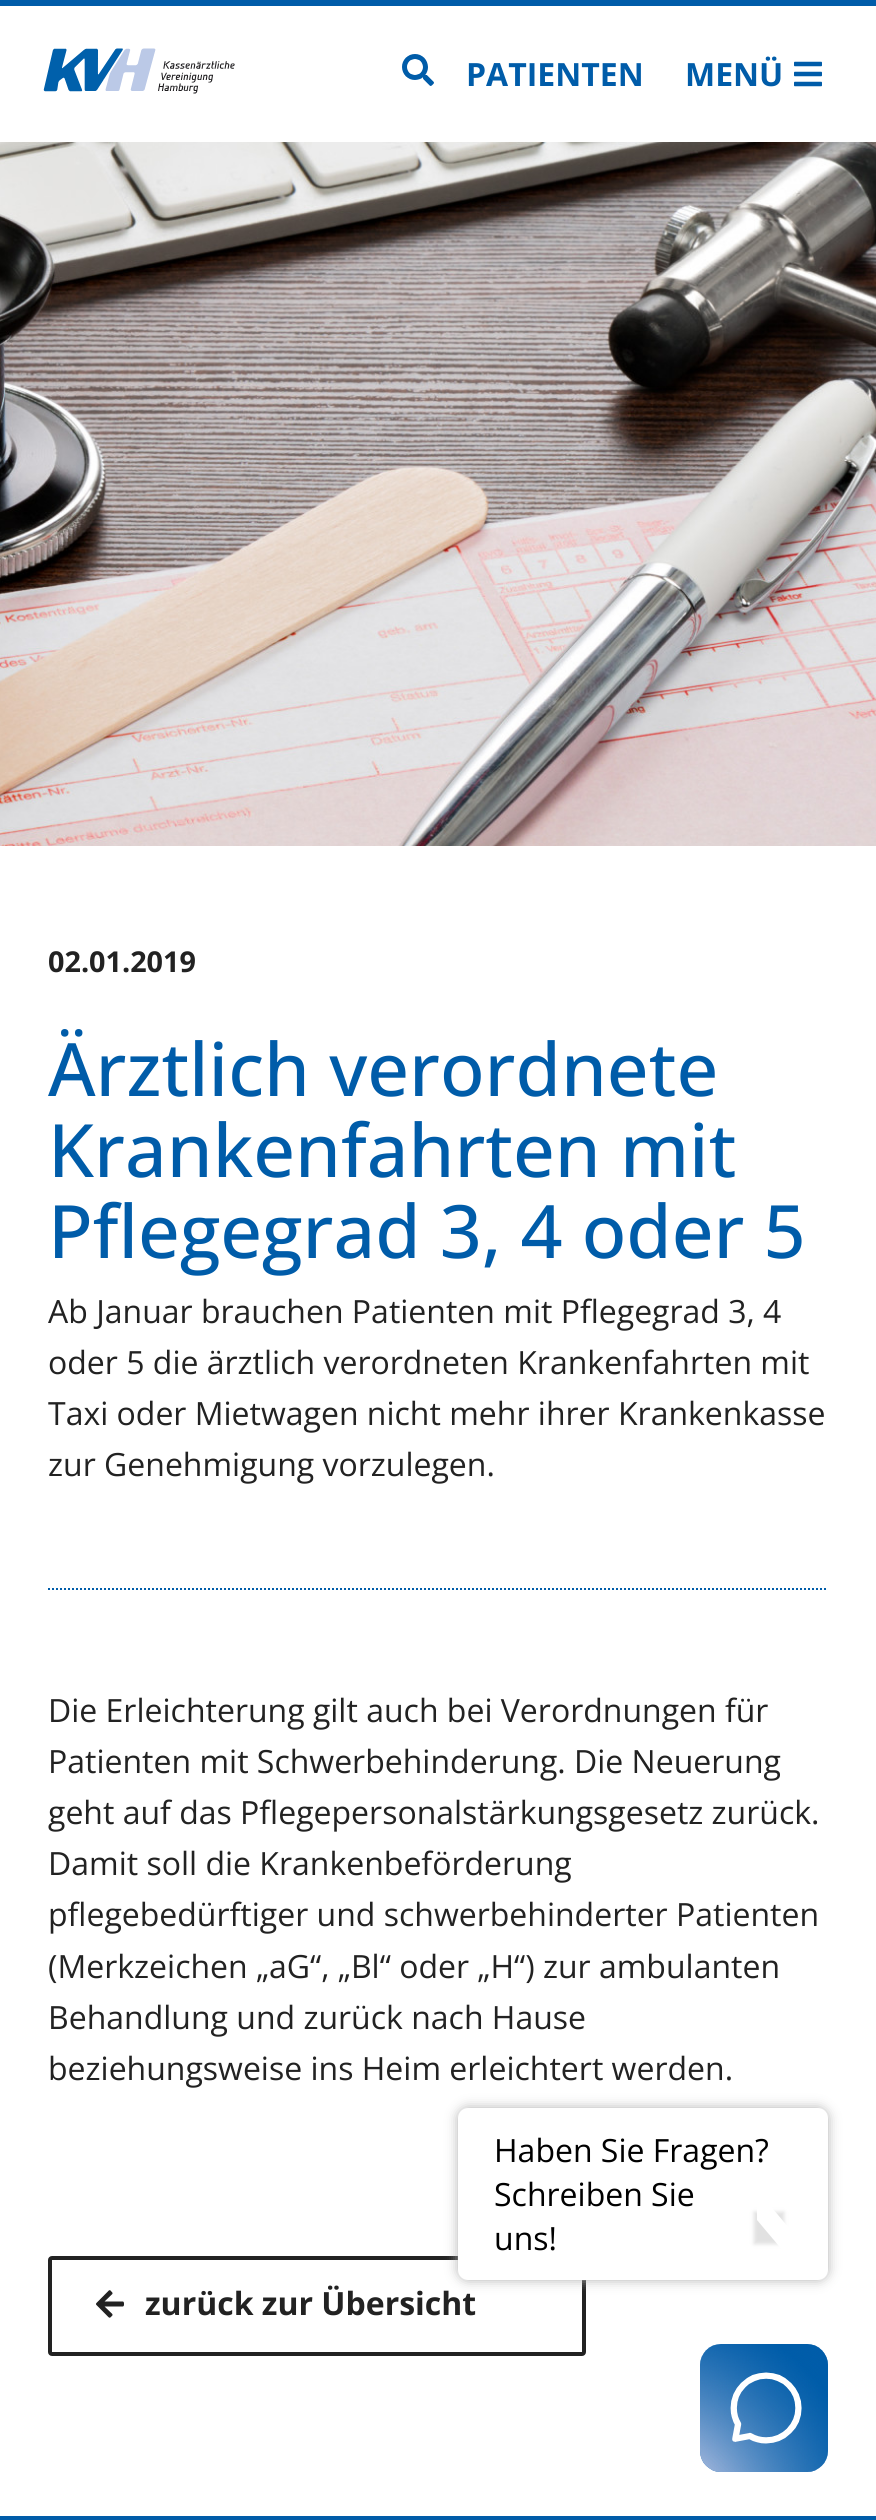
import math
import cairo

surface = cairo.ImageSurface(cairo.FORMAT_RGB24, 876, 2520)
ctx = cairo.Context(surface)
options = cairo.FontOptions()
options.set_hint_metrics(cairo.HINT_METRICS_OFF)
options.set_hint_style(cairo.HINT_STYLE_NONE)
ctx.set_font_options(options)
ctx.set_miter_limit(4)


def round_rect(x, y, w, h, r):
    ctx.new_sub_path()
    for i, (u, v) in enumerate([(x + w - r, y + h - r), (x + r, y + h - r), (x + r, y + r), (x + w - r, y + r)]):
        ctx.arc(u, v, r, i * math.pi / 2, (i + 1) * math.pi / 2)
    ctx.close_path()


def shadow(x, y, w, h, r, blur, alpha):
    ctx.push_group_with_content(cairo.CONTENT_ALPHA)
    ctx.set_operator(cairo.OPERATOR_SOURCE)
    for i in range(15, -16, -2):
        e = blur * i / 6
        if min(w, h) + 2 * e > 0:
            ctx.set_source_rgba(0, 0, 0, alpha * math.erfc((i - 1) / 8.5) / 2)
            round_rect(x - e, y - e, w + 2 * e, h + 2 * e, max(0, min(r + e + blur * .6, min(w, h) / 2 + e)))
            ctx.fill()
    ctx.mask(ctx.pop_group())


def picture(path, x, y, w, h):
    ctx.save()
    ctx.set_source_surface(cairo.ImageSurface.create_from_png(path), x, y)
    ctx.rectangle(x, y, w, h)
    ctx.fill()
    ctx.restore()


ctx.set_source_rgb(1, 1, 1)
ctx.paint()
ctx.set_source_rgb(0, 0.361, 0.663)
ctx.rectangle(0, 0, 876, 6)
ctx.fill()
picture("img1.png", 43, 48, 192, 46)
picture("img2.png", 402, 54, 32, 32)
ctx.select_font_face("Open Sans", cairo.FONT_SLANT_NORMAL, cairo.FONT_WEIGHT_BOLD)
ctx.set_font_size(32)
ctx.move_to(466, 86)
ctx.show_text("PATIENTEN")
ctx.move_to(685, 86)
ctx.show_text("MENÜ")
picture("img3.png", 794, 61, 28, 26)
picture("img4.png", 0, 142, 876, 704)
ctx.new_path()
ctx.move_to(48, 1589)
ctx.line_to(828, 1589)
ctx.set_dash([2, 2])
ctx.stroke()
ctx.set_font_size(28.75)
ctx.set_source_rgb(0.133, 0.133, 0.133)
ctx.move_to(48, 972)
ctx.show_text("02.01.2019")
ctx.select_font_face("Open Sans Medium")
ctx.set_font_size(73.6)
ctx.set_source_rgb(0, 0.361, 0.663)
ctx.move_to(48, 1096)
ctx.show_text("Ärztlich verordnete")
ctx.move_to(48, 1177)
ctx.show_text("Krankenfahrten mit")
ctx.move_to(48, 1258)
ctx.show_text("Pflegegrad 3, 4 oder 5")
ctx.select_font_face("Open Sans")
ctx.set_font_size(32)
ctx.set_source_rgb(0.133, 0.133, 0.133)
ctx.move_to(48, 1323)
ctx.show_text("Ab Januar brauchen Patienten mit Pflegegrad 3, 4")
ctx.move_to(48, 1374)
ctx.show_text("oder 5 die ärztlich verordneten Krankenfahrten mit")
ctx.move_to(48, 1425)
ctx.show_text("Taxi oder Mietwagen nicht mehr ihrer Krankenkasse")
ctx.move_to(48, 1476)
ctx.show_text("zur Genehmigung vorzulegen.")
ctx.move_to(48, 1722)
ctx.show_text("Die Erleichterung gilt auch bei Verordnungen für")
ctx.move_to(48, 1773)
ctx.show_text("Patienten mit Schwerbehinderung. Die Neuerung")
ctx.move_to(48, 1824)
ctx.show_text("geht auf das Pflegepersonalstärkungsgesetz zurück.")
ctx.move_to(48, 1875)
ctx.show_text("Damit soll die Krankenbeförderung")
ctx.move_to(48, 1926)
ctx.show_text("pflegebedürftiger und schwerbehinderter Patienten")
ctx.move_to(48, 1978)
ctx.show_text("(Merkzeichen „aG“, „Bl“ oder „H“) zur ambulanten")
ctx.move_to(48, 2029)
ctx.show_text("Behandlung und zurück nach Hause")
ctx.move_to(48, 2080)
ctx.show_text("beziehungsweise ins Heim erleichtert werden.")
round_rect(50, 2258, 534, 96, 2)
ctx.set_line_width(4)
ctx.set_dash([])
ctx.stroke()
picture("img5.png", 96, 2290, 28, 28)
ctx.select_font_face("Open Sans", cairo.FONT_SLANT_NORMAL, cairo.FONT_WEIGHT_BOLD)
ctx.move_to(145, 2315)
ctx.show_text("zurück zur Übersicht")
ctx.set_source_rgb(0.698, 0.698, 0.698)
shadow(458, 2108, 370, 172, 10, 6, 1)
ctx.set_source_rgb(1, 1, 1)
round_rect(458, 2108, 370, 172, 10)
ctx.fill()
ctx.select_font_face("Open Sans")
ctx.set_source_rgb(0, 0, 0)
ctx.move_to(494, 2162)
ctx.show_text("Haben Sie Fragen?")
ctx.move_to(494, 2206)
ctx.show_text("Schreiben Sie")
ctx.set_source_rgb(0.702, 0.702, 0.702)
shadow(754, 2212, 30, 32, 0, 2, 0.4)
ctx.set_source_rgb(1, 1, 1)
ctx.new_path()
ctx.move_to(757, 2220)
ctx.line_to(757, 2190)
ctx.line_to(789, 2228)
ctx.line_to(789, 2258)
ctx.close_path()
ctx.fill()
ctx.set_source_rgb(0, 0, 0)
ctx.move_to(494, 2250)
ctx.show_text("uns!")
picture("img6.png", 700, 2344, 128, 128)
ctx.set_source_rgb(0, 0.361, 0.663)
ctx.rectangle(0, 2516, 876, 4)
ctx.fill()
surface.write_to_png("page.png")
